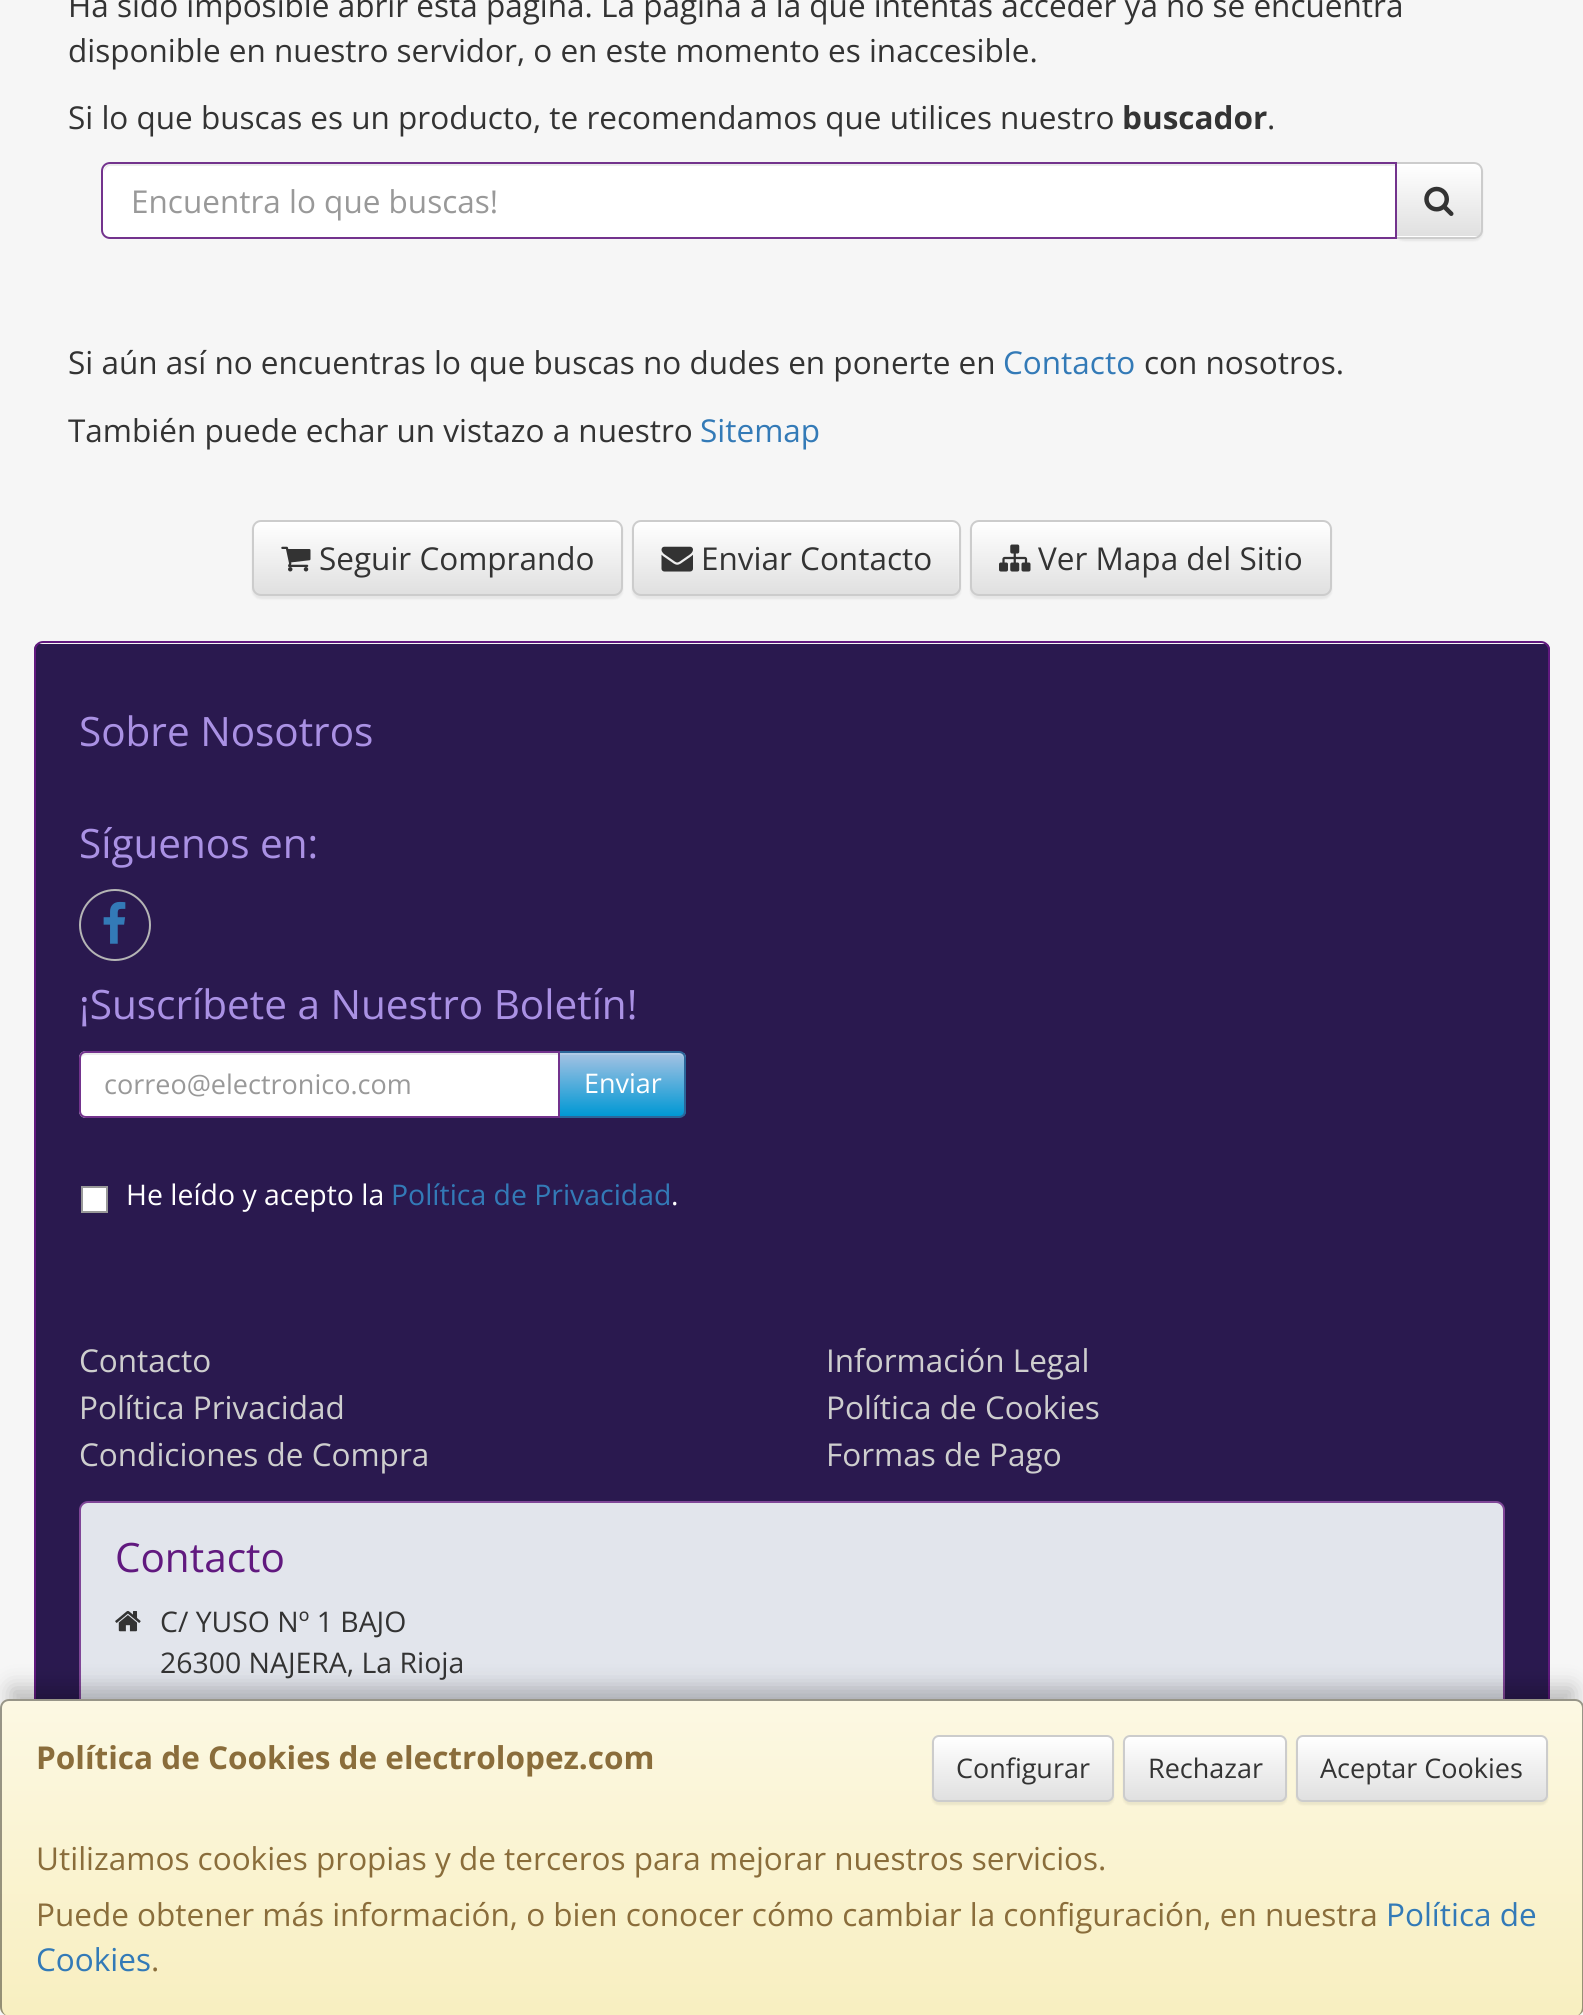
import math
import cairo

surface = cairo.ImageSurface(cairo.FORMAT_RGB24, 1583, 2015)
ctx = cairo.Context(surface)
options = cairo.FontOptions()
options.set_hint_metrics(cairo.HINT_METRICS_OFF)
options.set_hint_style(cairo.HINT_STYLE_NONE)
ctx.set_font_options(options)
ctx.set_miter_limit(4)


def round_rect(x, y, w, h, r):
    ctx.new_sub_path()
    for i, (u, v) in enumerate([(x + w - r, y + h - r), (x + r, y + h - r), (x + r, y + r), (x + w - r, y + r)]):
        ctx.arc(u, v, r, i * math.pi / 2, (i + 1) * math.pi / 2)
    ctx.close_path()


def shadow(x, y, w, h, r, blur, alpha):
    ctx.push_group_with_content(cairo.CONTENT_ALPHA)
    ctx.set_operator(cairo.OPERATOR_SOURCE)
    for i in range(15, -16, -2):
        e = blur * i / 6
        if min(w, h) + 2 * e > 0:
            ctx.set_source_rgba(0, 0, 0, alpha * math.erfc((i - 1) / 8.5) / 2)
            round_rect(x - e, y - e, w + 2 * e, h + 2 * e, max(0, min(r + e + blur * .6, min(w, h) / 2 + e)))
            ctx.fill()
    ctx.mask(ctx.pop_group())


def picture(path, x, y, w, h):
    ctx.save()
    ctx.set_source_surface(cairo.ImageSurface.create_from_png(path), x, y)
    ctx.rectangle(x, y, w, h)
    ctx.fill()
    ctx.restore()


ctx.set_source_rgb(0.961, 0.961, 0.961)
ctx.paint()
ctx.select_font_face("Open Sans")
ctx.set_font_size(31.5)
ctx.set_source_rgb(0.2, 0.2, 0.2)
ctx.move_to(68, 17)
ctx.show_text("Ha sido imposible abrir esta página. La página a la que intentas acceder ya no se encuentra")
ctx.move_to(68, 62)
ctx.show_text("disponible en nuestro servidor, o en este momento es inaccesible.")
ctx.move_to(68, 129)
ctx.show_text("Si lo que buscas es un producto, te recomendamos que utilices nuestro")
ctx.select_font_face("Open Sans", cairo.FONT_SLANT_NORMAL, cairo.FONT_WEIGHT_BOLD)
ctx.move_to(1122, 129)
ctx.show_text("buscador")
ctx.select_font_face("Open Sans")
ctx.move_to(1267, 129)
ctx.show_text(".")
ctx.set_source_rgb(0, 0, 0)
shadow(1395, 164, 88, 77, 9, 1, 0.07)
ctx.set_source_rgb(1, 1, 1)
ctx.new_path()
ctx.move_to(1395, 162)
ctx.line_to(1474, 162)
ctx.curve_to(1479, 162, 1483, 166, 1483, 171)
ctx.line_to(1483, 230)
ctx.curve_to(1483, 235, 1479, 239, 1474, 239)
ctx.line_to(1395, 239)
ctx.close_path()
ctx.fill()
ctx.save()
ctx.new_path()
ctx.move_to(1395, 162)
ctx.line_to(1474, 162)
ctx.curve_to(1479, 162, 1483, 166, 1483, 171)
ctx.line_to(1483, 230)
ctx.curve_to(1483, 235, 1479, 239, 1474, 239)
ctx.line_to(1395, 239)
ctx.close_path()
ctx.clip()
gradient = cairo.LinearGradient(1439, 164, 1439, 236)
gradient.add_color_stop_rgba(0, 1, 1, 1, 1)
gradient.add_color_stop_rgba(1, 0.878, 0.878, 0.878, 1)
ctx.set_source(gradient)
ctx.rectangle(1397, 164, 86, 72)
ctx.fill()
ctx.restore()
ctx.set_source_rgba(1, 1, 1, 0.15)
ctx.new_path()
ctx.move_to(1397, 166)
ctx.line_to(1475, 166)
ctx.curve_to(1482, 168, 1480, 178, 1480, 183)
ctx.line_to(1480, 233)
ctx.curve_to(1481, 232, 1481, 230, 1481, 229)
ctx.line_to(1481, 171)
ctx.curve_to(1481, 167, 1478, 164, 1474, 164)
ctx.line_to(1397, 164)
ctx.close_path()
ctx.fill()
ctx.new_path()
ctx.move_to(1396, 163)
ctx.line_to(1474, 163)
ctx.curve_to(1478.5, 163, 1482, 166.5, 1482, 171)
ctx.line_to(1482, 230)
ctx.curve_to(1482, 234.5, 1478.5, 238, 1474, 238)
ctx.line_to(1396, 238)
ctx.close_path()
ctx.set_source_rgb(0.8, 0.8, 0.8)
ctx.stroke()
ctx.set_source_rgb(1, 1, 1)
ctx.new_path()
ctx.move_to(110, 162)
ctx.line_to(1397, 162)
ctx.line_to(1397, 239)
ctx.line_to(110, 239)
ctx.curve_to(105, 239, 101, 235, 101, 230)
ctx.line_to(101, 171)
ctx.curve_to(101, 166, 105, 162, 110, 162)
ctx.close_path()
ctx.fill()
ctx.set_source_rgb(0.925, 0.925, 0.925)
ctx.new_path()
ctx.move_to(110, 166)
ctx.line_to(1395, 166)
ctx.line_to(1395, 164)
ctx.line_to(111, 164)
ctx.curve_to(107, 164, 104, 167, 104, 171)
ctx.line_to(104, 173)
ctx.curve_to(104, 170, 107, 166, 110, 166)
ctx.close_path()
ctx.fill()
ctx.new_path()
ctx.move_to(110, 163)
ctx.line_to(1396, 163)
ctx.line_to(1396, 238)
ctx.line_to(110, 238)
ctx.curve_to(105.5, 238, 102, 234.5, 102, 230)
ctx.line_to(102, 171)
ctx.curve_to(102, 166.5, 105.5, 163, 110, 163)
ctx.close_path()
ctx.set_source_rgb(0.451, 0.2, 0.553)
ctx.stroke()
ctx.set_source_rgb(0.6, 0.6, 0.6)
ctx.move_to(131, 213)
ctx.show_text("Encuentra lo que buscas!")
picture("img1.png", 1424, 186, 30, 30)
ctx.set_source_rgb(0.2, 0.2, 0.2)
ctx.move_to(68, 374)
ctx.show_text("Si aún así no encuentras lo que buscas no dudes en ponerte en")
ctx.set_source_rgb(0.2, 0.478, 0.718)
ctx.move_to(1003, 374)
ctx.show_text("Contacto")
ctx.set_source_rgb(0.2, 0.2, 0.2)
ctx.move_to(1144, 374)
ctx.show_text("con nosotros.")
ctx.move_to(68, 442)
ctx.show_text("También puede echar un vistazo a nuestro")
ctx.set_source_rgb(0.2, 0.478, 0.718)
ctx.move_to(700, 442)
ctx.show_text("Sitemap")
ctx.set_source_rgb(0, 0, 0)
shadow(252, 522, 371, 77, 9, 1, 0.07)
ctx.save()
round_rect(252, 520, 371, 76, 9)
ctx.clip()
gradient = cairo.LinearGradient(438, 522, 438, 594)
gradient.add_color_stop_rgba(0, 1, 1, 1, 1)
gradient.add_color_stop_rgba(1, 0.878, 0.878, 0.878, 1)
ctx.set_source(gradient)
ctx.rectangle(252, 522, 371, 72)
ctx.fill()
ctx.restore()
round_rect(253, 521, 369, 74, 8)
ctx.set_source_rgb(0.8, 0.8, 0.8)
ctx.stroke()
picture("img2.png", 281, 546, 30, 26)
ctx.set_source_rgb(0.2, 0.2, 0.2)
ctx.move_to(319, 570)
ctx.show_text("Seguir Comprando")
ctx.set_source_rgb(0, 0, 0)
shadow(632, 522, 329, 77, 9, 1, 0.07)
ctx.save()
round_rect(632, 520, 329, 76, 9)
ctx.clip()
gradient = cairo.LinearGradient(797, 522, 797, 594)
gradient.add_color_stop_rgba(0, 1, 1, 1, 1)
gradient.add_color_stop_rgba(1, 0.878, 0.878, 0.878, 1)
ctx.set_source(gradient)
ctx.rectangle(632, 522, 329, 72)
ctx.fill()
ctx.restore()
ctx.set_source_rgba(1, 1, 1, 0.15)
ctx.new_path()
ctx.move_to(641, 524)
ctx.line_to(952, 524)
ctx.curve_to(955, 524, 958, 527, 958, 531)
ctx.line_to(958, 591)
ctx.curve_to(959, 590, 959, 588, 959, 587)
ctx.line_to(959, 529)
ctx.curve_to(959, 525, 956, 522, 952, 522)
ctx.line_to(642, 522)
ctx.curve_to(639, 522, 636, 524, 635, 527)
ctx.curve_to(637, 525, 639, 524, 641, 524)
ctx.close_path()
ctx.fill()
round_rect(633, 521, 327, 74, 8)
ctx.set_source_rgb(0.8, 0.8, 0.8)
ctx.stroke()
picture("img3.png", 661, 546, 32, 26)
ctx.set_source_rgb(0.2, 0.2, 0.2)
ctx.move_to(701, 570)
ctx.show_text("Enviar Contacto")
ctx.set_source_rgb(0, 0, 0)
shadow(970, 522, 362, 77, 9, 1, 0.07)
ctx.save()
round_rect(970, 520, 362, 76, 9)
ctx.clip()
gradient = cairo.LinearGradient(1151, 522, 1151, 594)
gradient.add_color_stop_rgba(0, 1, 1, 1, 1)
gradient.add_color_stop_rgba(1, 0.878, 0.878, 0.878, 1)
ctx.set_source(gradient)
ctx.rectangle(970, 522, 362, 72)
ctx.fill()
ctx.restore()
round_rect(971, 521, 360, 74, 8)
ctx.set_source_rgb(0.8, 0.8, 0.8)
ctx.stroke()
picture("img4.png", 999, 544, 32, 28)
ctx.set_source_rgb(0.2, 0.2, 0.2)
ctx.move_to(1038, 570)
ctx.show_text("Ver Mapa del Sitio")
ctx.save()
round_rect(34, 641, 1516, 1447, 9)
ctx.clip()
ctx.set_source_rgb(0.165, 0.098, 0.31)
ctx.rectangle(34, 644, 1516, 1055)
ctx.fill()
ctx.restore()
round_rect(35, 642, 1514, 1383, 8)
ctx.set_source_rgb(0.38, 0.098, 0.498)
ctx.stroke()
ctx.set_font_size(40.5)
ctx.set_source_rgb(0.667, 0.569, 0.894)
ctx.move_to(79, 746)
ctx.show_text("Sobre Nosotros")
ctx.move_to(79, 858)
ctx.show_text("Síguenos en:")
ctx.new_path()
ctx.arc(115, 925, 35, 0, 2 * math.pi)
ctx.set_source_rgb(0.71, 0.71, 0.71)
ctx.stroke()
picture("img5.png", 103, 901, 23, 43)
ctx.set_source_rgb(0.667, 0.569, 0.894)
ctx.move_to(79, 1019)
ctx.show_text("¡Suscríbete a Nuestro Boletín!")
ctx.save()
ctx.new_path()
ctx.move_to(558, 1051)
ctx.line_to(679, 1051)
ctx.curve_to(683, 1051, 686, 1054, 686, 1058)
ctx.line_to(686, 1111)
ctx.curve_to(686, 1115, 683, 1118, 679, 1118)
ctx.line_to(558, 1118)
ctx.close_path()
ctx.clip()
gradient = cairo.LinearGradient(622, 1053, 622, 1116)
gradient.add_color_stop_rgba(0, 0.647, 0.761, 0.89, 1)
gradient.add_color_stop_rgba(1, 0, 0.596, 0.831, 1)
ctx.set_source(gradient)
ctx.rectangle(560, 1053, 126, 63)
ctx.fill()
ctx.restore()
ctx.set_source_rgba(1, 1, 1, 0.15)
ctx.new_path()
ctx.move_to(560, 1055)
ctx.line_to(680, 1055)
ctx.curve_to(682, 1055, 684, 1057, 684, 1060)
ctx.line_to(684, 1058)
ctx.curve_to(684, 1055, 682, 1053, 679, 1053)
ctx.line_to(560, 1053)
ctx.close_path()
ctx.fill()
ctx.new_path()
ctx.move_to(559, 1052)
ctx.line_to(679, 1052)
ctx.curve_to(682.5, 1052, 685, 1054.5, 685, 1058)
ctx.line_to(685, 1111)
ctx.curve_to(685, 1114.5, 682.5, 1117, 679, 1117)
ctx.line_to(559, 1117)
ctx.close_path()
ctx.set_source_rgb(0.169, 0.4, 0.604)
ctx.stroke()
ctx.set_source_rgb(1, 1, 1)
ctx.new_path()
ctx.move_to(86, 1051)
ctx.line_to(560, 1051)
ctx.line_to(560, 1118)
ctx.line_to(86, 1118)
ctx.curve_to(82, 1118, 79, 1115, 79, 1111)
ctx.line_to(79, 1058)
ctx.curve_to(79, 1054, 82, 1051, 86, 1051)
ctx.close_path()
ctx.fill()
ctx.set_source_rgb(0.925, 0.925, 0.925)
ctx.new_path()
ctx.move_to(86, 1055)
ctx.line_to(558, 1055)
ctx.line_to(558, 1053)
ctx.line_to(86, 1053)
ctx.curve_to(83, 1053, 81, 1055, 81, 1058)
ctx.line_to(81, 1060)
ctx.curve_to(81, 1057, 83, 1055, 86, 1055)
ctx.close_path()
ctx.fill()
ctx.new_path()
ctx.move_to(86, 1052)
ctx.line_to(559, 1052)
ctx.line_to(559, 1117)
ctx.line_to(86, 1117)
ctx.curve_to(82.5, 1117, 80, 1114.5, 80, 1111)
ctx.line_to(80, 1058)
ctx.curve_to(80, 1054.5, 82.5, 1052, 86, 1052)
ctx.close_path()
ctx.set_source_rgb(0.451, 0.2, 0.553)
ctx.stroke()
ctx.set_font_size(27)
ctx.set_source_rgb(0.6, 0.6, 0.6)
ctx.move_to(104, 1094)
ctx.show_text("correo@electronico.com")
ctx.set_source_rgb(1, 1, 1)
ctx.move_to(584, 1093)
ctx.show_text("Enviar")
ctx.rectangle(82, 1187, 25, 25)
ctx.fill_preserve()
ctx.set_source_rgb(0.6, 0.6, 0.6)
ctx.stroke()
ctx.set_font_size(28.4)
ctx.set_source_rgb(1, 1, 1)
ctx.move_to(126, 1205)
ctx.show_text("He leído y acepto la")
ctx.set_source_rgb(0.2, 0.478, 0.718)
ctx.move_to(391, 1205)
ctx.show_text("Política de Privacidad")
ctx.set_source_rgb(1, 1, 1)
ctx.move_to(671, 1205)
ctx.show_text(".")
ctx.set_font_size(31.5)
ctx.set_source_rgb(0.808, 0.808, 0.808)
ctx.move_to(79, 1372)
ctx.show_text("Contacto")
ctx.move_to(826, 1372)
ctx.show_text("Información Legal")
ctx.move_to(79, 1419)
ctx.show_text("Política Privacidad")
ctx.move_to(826, 1419)
ctx.show_text("Política de Cookies")
ctx.move_to(79, 1466)
ctx.show_text("Condiciones de Compra")
ctx.move_to(826, 1466)
ctx.show_text("Formas de Pago")
ctx.set_source_rgb(0.886, 0.898, 0.925)
round_rect(80, 1502, 1424, 324, 8)
ctx.fill_preserve()
ctx.set_source_rgb(0.498, 0.275, 0.592)
ctx.stroke()
ctx.set_font_size(40.5)
ctx.set_source_rgb(0.38, 0.098, 0.498)
ctx.move_to(115, 1572)
ctx.show_text("Contacto")
picture("img6.png", 115, 1611, 26, 21)
ctx.set_font_size(28.4)
ctx.set_source_rgb(0.2, 0.2, 0.2)
ctx.move_to(160, 1632)
ctx.show_text("C/ YUSO Nº 1 BAJO")
ctx.move_to(160, 1673)
ctx.show_text("26300 NAJERA, La Rioja")
ctx.set_source_rgb(0, 0, 0)
shadow(11, 1688, 1562, 294, 0, 11, 0.25)
ctx.set_source_rgb(0.988, 0.973, 0.89)
round_rect(0, 1699, 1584, 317, 9)
ctx.fill()
ctx.save()
round_rect(0, 1699, 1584, 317, 9)
ctx.clip()
gradient = cairo.LinearGradient(792, 1701, 792, 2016)
gradient.add_color_stop_rgba(0, 0.988, 0.973, 0.89, 1)
gradient.add_color_stop_rgba(1, 0.973, 0.937, 0.753, 1)
ctx.set_source(gradient)
ctx.new_path()
ctx.move_to(0, 1701)
ctx.line_to(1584, 1701)
ctx.line_to(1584, 2007)
ctx.curve_to(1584, 2012, 1580, 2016, 1575, 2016)
ctx.line_to(9, 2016)
ctx.curve_to(4, 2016, 0, 2012, 0, 2007)
ctx.close_path()
ctx.fill()
ctx.restore()
ctx.set_source_rgba(0, 0, 0, 0.4)
ctx.set_fill_rule(cairo.FILL_RULE_EVEN_ODD)
ctx.new_path()
ctx.move_to(9, 1699)
ctx.line_to(1575, 1699)
ctx.curve_to(1580, 1699, 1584, 1703, 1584, 1708)
ctx.line_to(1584, 2007)
ctx.curve_to(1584, 2012, 1580, 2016, 1575, 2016)
ctx.line_to(9, 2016)
ctx.curve_to(4, 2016, 0, 2012, 0, 2007)
ctx.line_to(0, 1708)
ctx.curve_to(0, 1703, 4, 1699, 9, 1699)
ctx.close_path()
ctx.move_to(9, 1701)
ctx.line_to(1575, 1701)
ctx.curve_to(1579, 1701, 1582, 1704, 1582, 1708)
ctx.line_to(1582, 2007)
ctx.curve_to(1582, 2012, 1579, 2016, 1575, 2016)
ctx.line_to(9, 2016)
ctx.curve_to(5, 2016, 2, 2012, 2, 2007)
ctx.line_to(2, 1708)
ctx.curve_to(2, 1704, 5, 1701, 9, 1701)
ctx.close_path()
ctx.fill()
ctx.select_font_face("Open Sans", cairo.FONT_SLANT_NORMAL, cairo.FONT_WEIGHT_BOLD)
ctx.set_font_size(31.5)
ctx.set_source_rgb(0.541, 0.427, 0.231)
ctx.move_to(36, 1769)
ctx.show_text("Política de Cookies de electrolopez.com")
ctx.set_source_rgb(0, 0, 0)
shadow(932, 1737, 182, 68, 7, 1, 0.07)
ctx.save()
ctx.set_fill_rule(cairo.FILL_RULE_WINDING)
round_rect(932, 1735, 182, 67, 7)
ctx.clip()
gradient = cairo.LinearGradient(1023, 1737, 1023, 1800)
gradient.add_color_stop_rgba(0, 1, 1, 1, 1)
gradient.add_color_stop_rgba(1, 0.878, 0.878, 0.878, 1)
ctx.set_source(gradient)
ctx.rectangle(932, 1737, 182, 63)
ctx.fill()
ctx.restore()
round_rect(933, 1736, 180, 65, 6)
ctx.set_source_rgb(0.8, 0.8, 0.8)
ctx.stroke()
ctx.select_font_face("Open Sans")
ctx.set_font_size(27)
ctx.set_source_rgb(0.2, 0.2, 0.2)
ctx.move_to(956, 1778)
ctx.show_text("Configurar")
ctx.set_source_rgb(0, 0, 0)
shadow(1123, 1737, 164, 68, 7, 1, 0.07)
ctx.save()
ctx.set_fill_rule(cairo.FILL_RULE_WINDING)
round_rect(1123, 1735, 164, 67, 7)
ctx.clip()
gradient = cairo.LinearGradient(1205, 1737, 1205, 1800)
gradient.add_color_stop_rgba(0, 1, 1, 1, 1)
gradient.add_color_stop_rgba(1, 0.878, 0.878, 0.878, 1)
ctx.set_source(gradient)
ctx.rectangle(1123, 1737, 164, 63)
ctx.fill()
ctx.restore()
round_rect(1124, 1736, 162, 65, 6)
ctx.set_source_rgb(0.8, 0.8, 0.8)
ctx.stroke()
ctx.set_source_rgb(0.2, 0.2, 0.2)
ctx.move_to(1148, 1778)
ctx.show_text("Rechazar")
ctx.set_source_rgb(0, 0, 0)
shadow(1296, 1737, 252, 68, 7, 1, 0.07)
ctx.save()
ctx.set_fill_rule(cairo.FILL_RULE_WINDING)
round_rect(1296, 1735, 252, 67, 7)
ctx.clip()
gradient = cairo.LinearGradient(1422, 1737, 1422, 1800)
gradient.add_color_stop_rgba(0, 1, 1, 1, 1)
gradient.add_color_stop_rgba(1, 0.878, 0.878, 0.878, 1)
ctx.set_source(gradient)
ctx.rectangle(1296, 1737, 252, 63)
ctx.fill()
ctx.restore()
round_rect(1297, 1736, 250, 65, 6)
ctx.set_source_rgb(0.8, 0.8, 0.8)
ctx.stroke()
ctx.set_source_rgb(0.2, 0.2, 0.2)
ctx.move_to(1320, 1778)
ctx.show_text("Aceptar Cookies")
ctx.set_font_size(31.5)
ctx.set_source_rgb(0.541, 0.427, 0.231)
ctx.move_to(36, 1870)
ctx.show_text("Utilizamos cookies propias y de terceros para mejorar nuestros servicios.")
ctx.move_to(36, 1926)
ctx.show_text("Puede obtener más información, o bien conocer cómo cambiar la configuración, en nuestra")
ctx.set_source_rgb(0.2, 0.478, 0.718)
ctx.move_to(1386, 1926)
ctx.show_text("Política de")
ctx.move_to(36, 1971)
ctx.show_text("Cookies")
ctx.set_source_rgb(0.541, 0.427, 0.231)
ctx.move_to(151, 1971)
ctx.show_text(".")
surface.write_to_png("page.png")
